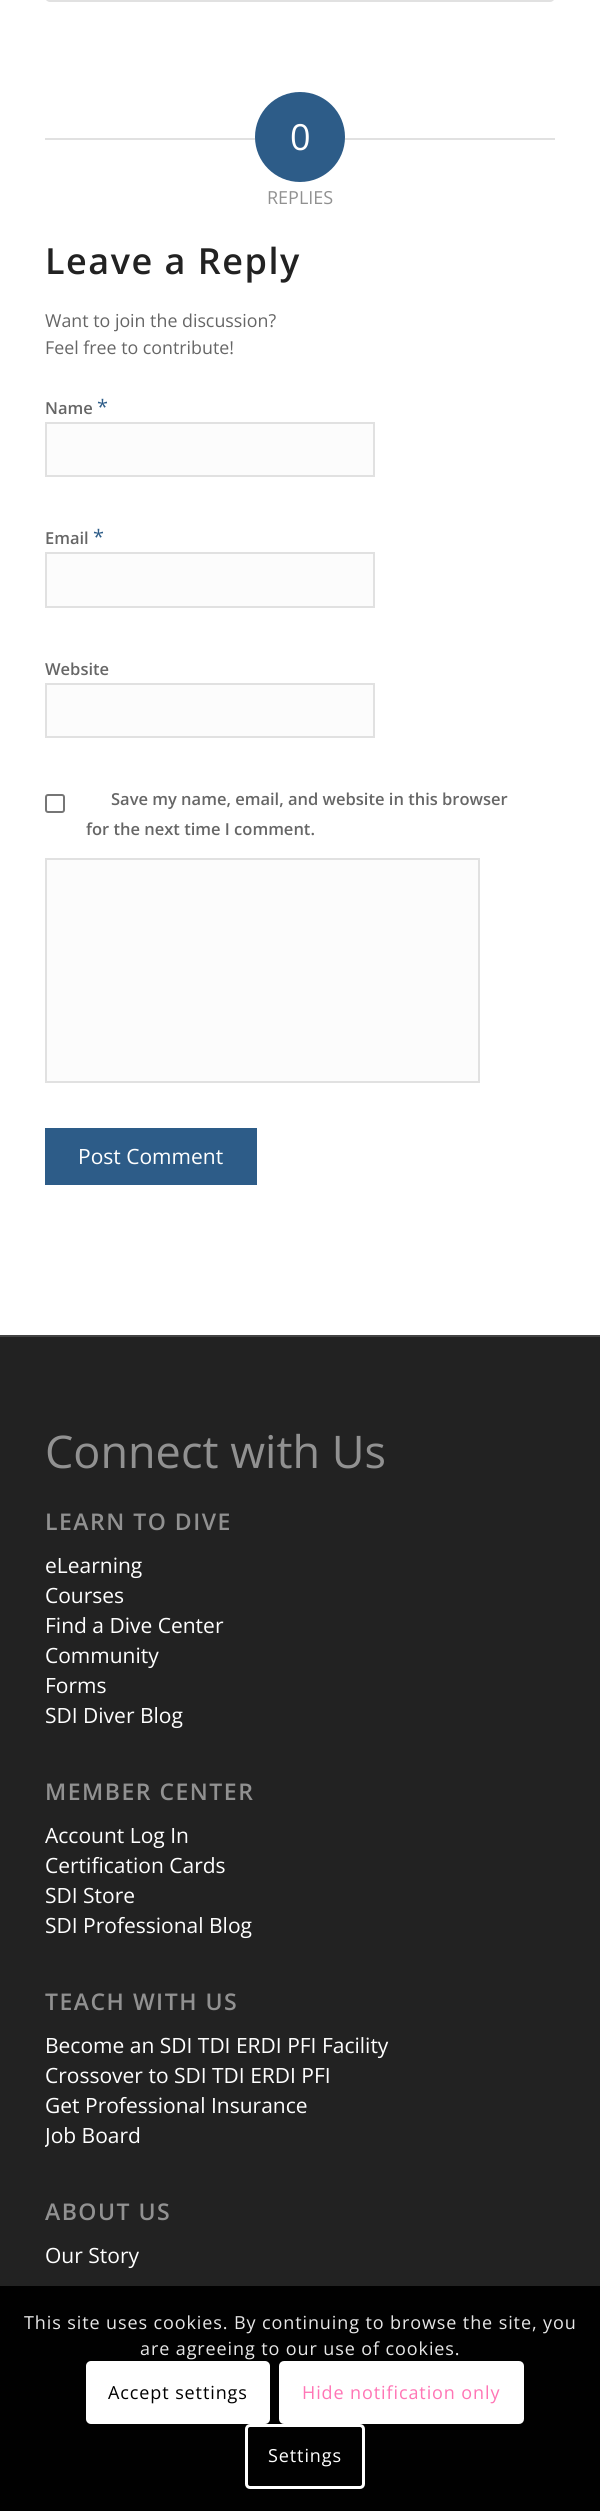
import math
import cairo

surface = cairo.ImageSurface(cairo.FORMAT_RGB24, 600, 2511)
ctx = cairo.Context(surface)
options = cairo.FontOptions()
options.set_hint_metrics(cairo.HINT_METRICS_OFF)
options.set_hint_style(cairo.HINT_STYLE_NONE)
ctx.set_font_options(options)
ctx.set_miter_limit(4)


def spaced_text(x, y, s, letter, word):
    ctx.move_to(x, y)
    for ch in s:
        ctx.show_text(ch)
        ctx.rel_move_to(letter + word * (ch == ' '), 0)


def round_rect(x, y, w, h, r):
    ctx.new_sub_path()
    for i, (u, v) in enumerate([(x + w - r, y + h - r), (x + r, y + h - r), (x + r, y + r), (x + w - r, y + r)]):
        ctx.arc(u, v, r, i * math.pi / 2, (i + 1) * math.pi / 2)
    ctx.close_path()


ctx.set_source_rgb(1, 1, 1)
ctx.paint()
round_rect(46, -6, 508, 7, 4)
ctx.set_source_rgb(0.882, 0.882, 0.882)
ctx.stroke()
ctx.rectangle(45, 138, 215, 2)
ctx.fill()
ctx.rectangle(341, 138, 214, 2)
ctx.fill()
ctx.set_source_rgb(0.176, 0.361, 0.533)
ctx.arc(300, 137, 45, 0, 2 * math.pi)
ctx.fill()
ctx.select_font_face("Open Sans")
ctx.set_font_size(36)
ctx.set_source_rgb(1, 1, 1)
ctx.move_to(290, 150)
ctx.show_text("0")
ctx.set_font_size(18)
ctx.set_source_rgb(0.569, 0.569, 0.569)
ctx.move_to(267, 204)
ctx.show_text("REPLIES")
ctx.select_font_face("Open Sans SemiBold")
ctx.set_font_size(36)
ctx.set_source_rgb(0.133, 0.133, 0.133)
spaced_text(45, 274, "Leave a Reply", 1.5, 0)
ctx.select_font_face("Open Sans")
ctx.set_font_size(17.8)
ctx.set_source_rgb(0.4, 0.4, 0.4)
ctx.move_to(45, 327)
ctx.show_text("Want to join the discussion?")
ctx.move_to(45, 354)
ctx.show_text("Feel free to contribute!")
ctx.select_font_face("Open Sans SemiBold")
ctx.set_font_size(16.5)
ctx.move_to(45, 414)
ctx.show_text("Name")
ctx.select_font_face("Open Sans")
ctx.set_font_size(20)
ctx.set_source_rgb(0.176, 0.361, 0.533)
ctx.move_to(97, 414)
ctx.show_text("*")
ctx.set_source_rgb(0.988, 0.988, 0.988)
ctx.rectangle(46, 423, 328, 53)
ctx.fill_preserve()
ctx.set_source_rgb(0.882, 0.882, 0.882)
ctx.stroke()
ctx.select_font_face("Open Sans SemiBold")
ctx.set_font_size(16.5)
ctx.set_source_rgb(0.4, 0.4, 0.4)
ctx.move_to(45, 544)
ctx.show_text("Email")
ctx.select_font_face("Open Sans")
ctx.set_font_size(20)
ctx.set_source_rgb(0.176, 0.361, 0.533)
ctx.move_to(93, 544)
ctx.show_text("*")
ctx.set_source_rgb(0.988, 0.988, 0.988)
ctx.rectangle(46, 553, 328, 54)
ctx.fill_preserve()
ctx.set_source_rgb(0.882, 0.882, 0.882)
ctx.stroke()
ctx.select_font_face("Open Sans SemiBold")
ctx.set_font_size(16.5)
ctx.set_source_rgb(0.4, 0.4, 0.4)
ctx.move_to(45, 675)
ctx.show_text("Website")
ctx.set_source_rgb(0.988, 0.988, 0.988)
ctx.rectangle(46, 684, 328, 53)
ctx.fill_preserve()
ctx.set_source_rgb(0.882, 0.882, 0.882)
ctx.stroke()
round_rect(46, 795, 18, 17, 2)
ctx.set_source_rgb(0.463, 0.463, 0.463)
ctx.stroke()
ctx.set_source_rgb(0.4, 0.4, 0.4)
ctx.move_to(111, 805)
ctx.show_text("Save my name, email, and website in this browser")
ctx.move_to(86, 835)
ctx.show_text("for the next time I comment.")
ctx.set_source_rgb(0.988, 0.988, 0.988)
ctx.rectangle(46, 859, 433, 223)
ctx.fill_preserve()
ctx.set_source_rgb(0.882, 0.882, 0.882)
ctx.stroke()
ctx.set_source_rgb(0.176, 0.361, 0.533)
ctx.rectangle(45, 1128, 212, 57)
ctx.fill()
ctx.select_font_face("Open Sans")
ctx.set_font_size(21)
ctx.set_source_rgb(1, 1, 1)
ctx.move_to(78, 1164)
ctx.show_text("Post Comment")
ctx.set_source_rgb(0.133, 0.133, 0.133)
ctx.rectangle(0, 1337, 600, 1174)
ctx.fill()
ctx.set_source_rgb(0.267, 0.267, 0.267)
ctx.rectangle(0, 1335, 600, 2)
ctx.fill()
ctx.set_font_size(45)
ctx.set_source_rgb(0.569, 0.569, 0.569)
ctx.move_to(45, 1468)
ctx.show_text("Connect with Us")
ctx.select_font_face("Open Sans SemiBold")
ctx.set_font_size(23)
spaced_text(45, 1530, "LEARN TO DIVE", 1.5, 0)
ctx.select_font_face("Open Sans")
ctx.set_font_size(21)
ctx.set_source_rgb(1, 1, 1)
ctx.move_to(45, 1573)
ctx.show_text("eLearning")
ctx.move_to(45, 1603)
ctx.show_text("Courses")
ctx.move_to(45, 1633)
ctx.show_text("Find a Dive Center")
ctx.move_to(45, 1663)
ctx.show_text("Community")
ctx.move_to(45, 1693)
ctx.show_text("Forms")
ctx.move_to(45, 1723)
ctx.show_text("SDI Diver Blog")
ctx.select_font_face("Open Sans SemiBold")
ctx.set_font_size(23)
ctx.set_source_rgb(0.569, 0.569, 0.569)
spaced_text(45, 1800, "MEMBER CENTER", 1.5, 0)
ctx.select_font_face("Open Sans")
ctx.set_font_size(21)
ctx.set_source_rgb(1, 1, 1)
ctx.move_to(45, 1843)
ctx.show_text("Account Log In")
ctx.move_to(45, 1873)
ctx.show_text("Certification Cards")
ctx.move_to(45, 1903)
ctx.show_text("SDI Store")
ctx.move_to(45, 1933)
ctx.show_text("SDI Professional Blog")
ctx.select_font_face("Open Sans SemiBold")
ctx.set_font_size(23)
ctx.set_source_rgb(0.569, 0.569, 0.569)
spaced_text(45, 2010, "TEACH WITH US", 1.5, 0)
ctx.select_font_face("Open Sans")
ctx.set_font_size(21)
ctx.set_source_rgb(1, 1, 1)
ctx.move_to(45, 2053)
ctx.show_text("Become an SDI TDI ERDI PFI Facility")
ctx.move_to(45, 2083)
ctx.show_text("Crossover to SDI TDI ERDI PFI")
ctx.move_to(45, 2113)
ctx.show_text("Get Professional Insurance")
ctx.save()
ctx.rectangle(45, 1971, 510, 180)
ctx.clip()
ctx.move_to(45, 2143)
ctx.show_text("Job Board")
ctx.restore()
ctx.select_font_face("Open Sans SemiBold")
ctx.set_font_size(23)
ctx.set_source_rgb(0.569, 0.569, 0.569)
spaced_text(45, 2220, "ABOUT US", 1.5, 0)
ctx.select_font_face("Open Sans")
ctx.set_font_size(21)
ctx.set_source_rgb(1, 1, 1)
ctx.move_to(45, 2263)
ctx.show_text("Our Story")
ctx.set_source_rgba(0, 0, 0, 0.85)
ctx.rectangle(0, 2286, 600, 225)
ctx.fill()
round_rect(280.5, 2362.5, 242, 60, 3.5)
ctx.set_source_rgb(1, 1, 1)
ctx.set_line_width(3)
ctx.stroke()
round_rect(246.5, 2425.5, 117, 62, 3.5)
ctx.stroke()
ctx.set_source_rgba(0, 0, 0, 0.85)
ctx.rectangle(0, 2286, 600, 225)
ctx.fill()
ctx.set_font_size(18)
ctx.set_source_rgb(0.906, 0.906, 0.906)
spaced_text(24, 2329, "This site uses cookies. By continuing to browse the site, you", 0.9, 0)
spaced_text(140, 2355, "are agreeing to our use of cookies.", 0.9, 0)
ctx.set_source_rgb(1, 1, 1)
round_rect(86, 2361, 184, 63, 5)
ctx.fill()
ctx.set_source_rgb(0, 0, 0)
spaced_text(108, 2399, "Accept settings", 0.9, 0)
ctx.set_source_rgb(1, 1, 1)
round_rect(280.5, 2362.5, 242, 60, 3.5)
ctx.fill_preserve()
ctx.stroke()
ctx.set_source_rgb(1, 0.459, 0.71)
spaced_text(302, 2399, "Hide notification only", 0.9, 0)
round_rect(246.5, 2425.5, 117, 62, 3.5)
ctx.set_source_rgb(1, 1, 1)
ctx.stroke()
spaced_text(268, 2462, "Settings", 0.9, 0)
surface.write_to_png("page.png")
